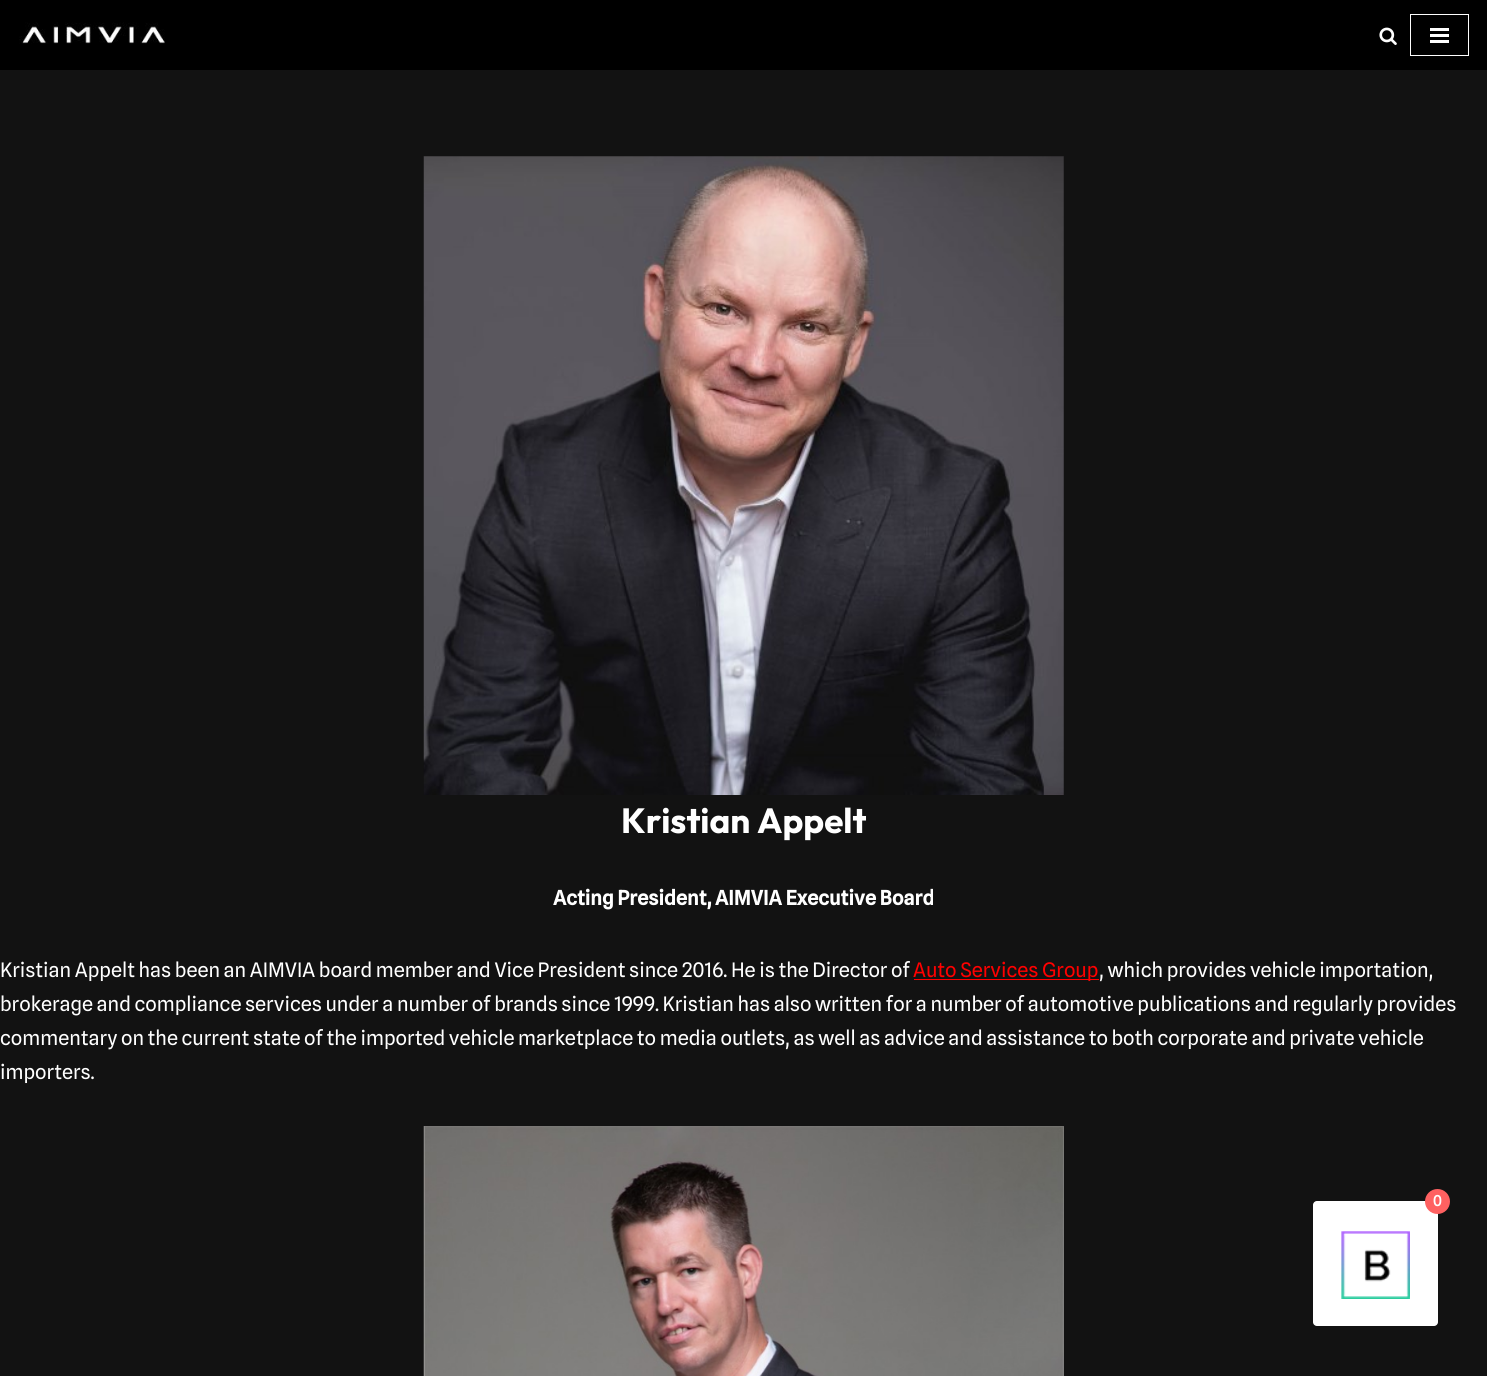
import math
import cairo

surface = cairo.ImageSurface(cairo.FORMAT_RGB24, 1487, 1376)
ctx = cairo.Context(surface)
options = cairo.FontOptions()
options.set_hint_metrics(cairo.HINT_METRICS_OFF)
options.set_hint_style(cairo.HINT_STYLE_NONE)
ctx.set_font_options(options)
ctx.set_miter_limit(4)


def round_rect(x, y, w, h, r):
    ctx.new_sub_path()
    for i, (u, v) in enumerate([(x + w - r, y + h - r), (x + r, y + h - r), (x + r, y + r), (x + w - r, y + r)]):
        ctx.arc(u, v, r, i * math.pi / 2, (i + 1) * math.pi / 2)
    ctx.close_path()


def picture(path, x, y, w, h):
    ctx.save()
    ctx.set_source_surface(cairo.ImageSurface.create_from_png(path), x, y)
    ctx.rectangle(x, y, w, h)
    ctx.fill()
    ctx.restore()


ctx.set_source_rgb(0.071, 0.071, 0.071)
ctx.paint()
ctx.set_source_rgb(0, 0, 0)
ctx.rectangle(0, 0, 1487, 70)
ctx.fill()
picture("img1.png", 19, 22, 146, 22)
picture("img2.png", 1379, 27, 18, 18)
ctx.rectangle(1410.5, 14.5, 58, 41)
ctx.set_source_rgb(0.996, 0.996, 0.996)
ctx.set_line_width(1)
ctx.stroke()
ctx.rectangle(1430, 28, 19, 3)
ctx.fill()
ctx.rectangle(1430, 34, 19, 3)
ctx.fill()
ctx.rectangle(1430, 40, 19, 3)
ctx.fill()
picture("img3.png", 423, 156, 641, 639)
ctx.select_font_face("Outfit", cairo.FONT_SLANT_NORMAL, cairo.FONT_WEIGHT_BOLD)
ctx.set_font_size(35)
ctx.set_source_rgb(1, 1, 1)
ctx.move_to(621, 833)
ctx.show_text("Kristian Appelt")
ctx.select_font_face("Spline Sans", cairo.FONT_SLANT_NORMAL, cairo.FONT_WEIGHT_BOLD)
ctx.set_font_size(20)
ctx.move_to(553, 905)
ctx.show_text("Acting President, AIMVIA Executive Board")
ctx.select_font_face("Spline Sans")
ctx.move_to(0, 977)
ctx.show_text("Kristian Appelt has been an AIMVIA board member and Vice President since 2016. He is the Director of")
ctx.set_source_rgb(1, 0, 0)
ctx.rectangle(914, 979, 185, 1)
ctx.fill()
ctx.move_to(913, 977)
ctx.show_text("Auto Services Group")
ctx.set_source_rgb(1, 1, 1)
ctx.move_to(1099, 977)
ctx.show_text(", which provides vehicle importation,")
ctx.move_to(0, 1011)
ctx.show_text("brokerage and compliance services under a number of brands since 1999. Kristian has also written for a number of automotive publications and regularly provides")
ctx.move_to(0, 1045)
ctx.show_text("commentary on the current state of the imported vehicle marketplace to media outlets, as well as advice and assistance to both corporate and private vehicle")
ctx.move_to(0, 1079)
ctx.show_text("importers.")
picture("img4.png", 423, 1126, 641, 250)
round_rect(1313, 1201, 125, 125, 4)
ctx.fill()
ctx.set_source_rgb(1, 0.38, 0.38)
ctx.arc(1437.5, 1201.5, 12.5, 0, 2 * math.pi)
ctx.fill()
ctx.select_font_face("Spline Sans Medium")
ctx.set_font_size(15)
ctx.set_source_rgb(1, 1, 1)
ctx.move_to(1433, 1206)
ctx.show_text("0")
picture("img5.png", 1341, 1231, 69, 68)
surface.write_to_png("page.png")
